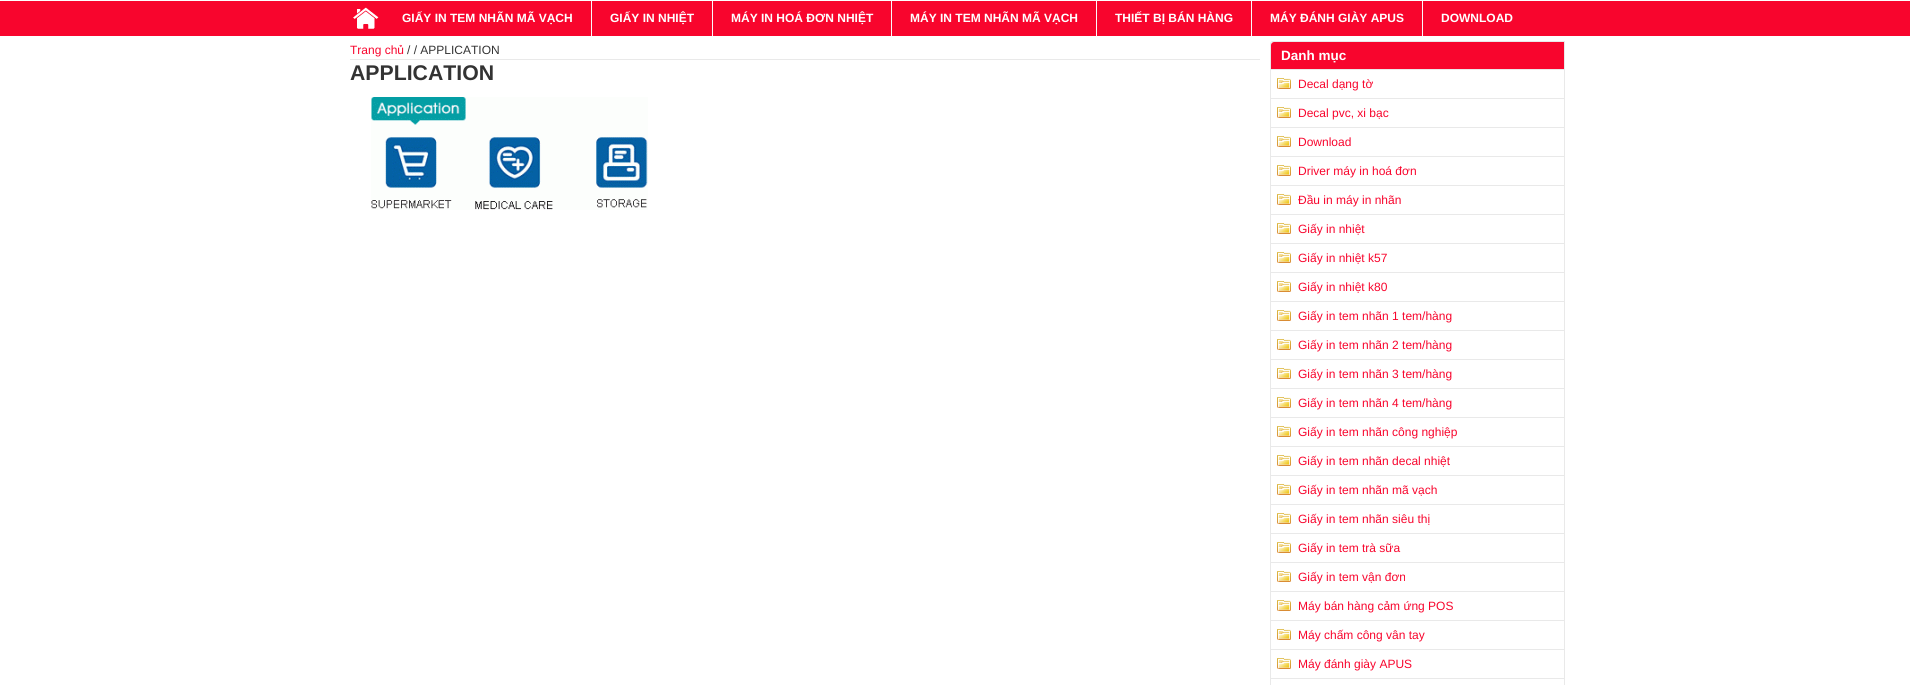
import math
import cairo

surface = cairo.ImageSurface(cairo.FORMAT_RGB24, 1910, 685)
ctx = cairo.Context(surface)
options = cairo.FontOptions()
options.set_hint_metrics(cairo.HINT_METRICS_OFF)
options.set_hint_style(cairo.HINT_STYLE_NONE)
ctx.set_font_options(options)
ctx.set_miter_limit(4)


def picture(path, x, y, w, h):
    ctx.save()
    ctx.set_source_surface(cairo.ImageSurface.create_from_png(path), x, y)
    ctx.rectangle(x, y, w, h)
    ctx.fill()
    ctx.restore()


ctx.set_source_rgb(1, 1, 1)
ctx.paint()
ctx.set_source_rgb(0.969, 0.02, 0.176)
ctx.rectangle(0, 1, 1910, 35)
ctx.fill()
picture("img1.png", 353, 7, 26, 22)
ctx.set_source_rgb(0.98, 0.98, 0.98)
ctx.rectangle(591, 1, 1, 35)
ctx.fill()
ctx.select_font_face("Liberation Sans", cairo.FONT_SLANT_NORMAL, cairo.FONT_WEIGHT_BOLD)
ctx.set_font_size(12)
ctx.set_source_rgb(1, 1, 1)
ctx.move_to(402, 22)
ctx.show_text("GIẤY IN TEM NHÃN MÃ VẠCH")
ctx.set_source_rgb(0.98, 0.98, 0.98)
ctx.rectangle(712, 1, 1, 35)
ctx.fill()
ctx.set_source_rgb(1, 1, 1)
ctx.move_to(610, 22)
ctx.show_text("GIẤY IN NHIỆT")
ctx.set_source_rgb(0.98, 0.98, 0.98)
ctx.rectangle(891, 1, 1, 35)
ctx.fill()
ctx.set_source_rgb(1, 1, 1)
ctx.move_to(731, 22)
ctx.show_text("MÁY IN HOÁ ĐƠN NHIỆT")
ctx.set_source_rgb(0.98, 0.98, 0.98)
ctx.rectangle(1096, 1, 1, 35)
ctx.fill()
ctx.set_source_rgb(1, 1, 1)
ctx.move_to(910, 22)
ctx.show_text("MÁY IN TEM NHÃN MÃ VẠCH")
ctx.set_source_rgb(0.98, 0.98, 0.98)
ctx.rectangle(1251, 1, 1, 35)
ctx.fill()
ctx.set_source_rgb(1, 1, 1)
ctx.move_to(1115, 22)
ctx.show_text("THIẾT BỊ BÁN HÀNG")
ctx.set_source_rgb(0.98, 0.98, 0.98)
ctx.rectangle(1422, 1, 1, 35)
ctx.fill()
ctx.set_source_rgb(1, 1, 1)
ctx.move_to(1270, 22)
ctx.show_text("MÁY ĐÁNH GIÀY APUS")
ctx.move_to(1441, 22)
ctx.show_text("DOWNLOAD")
ctx.set_source_rgb(0.914, 0.914, 0.914)
ctx.rectangle(350, 59, 910, 1)
ctx.fill()
ctx.select_font_face("Liberation Sans")
ctx.set_source_rgb(0.969, 0.02, 0.176)
ctx.move_to(350, 54)
ctx.show_text("Trang chủ")
ctx.set_source_rgb(0.2, 0.2, 0.2)
ctx.move_to(407, 54)
ctx.show_text("/ / APPLICATION")
ctx.select_font_face("Liberation Sans", cairo.FONT_SLANT_NORMAL, cairo.FONT_WEIGHT_BOLD)
ctx.set_font_size(21.25)
ctx.move_to(350, 80)
ctx.show_text("APPLICATION")
picture("img2.png", 371, 97, 277, 113)
ctx.new_path()
ctx.move_to(1273, 41.5)
ctx.line_to(1564.5, 41.5)
ctx.line_to(1564.5, 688.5)
ctx.line_to(1270.5, 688.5)
ctx.line_to(1270.5, 44)
ctx.curve_to(1270.5, 42.5, 1271.5, 41.5, 1273, 41.5)
ctx.close_path()
ctx.set_source_rgb(0.914, 0.914, 0.914)
ctx.set_line_width(1)
ctx.stroke()
ctx.set_source_rgb(0.969, 0.02, 0.176)
ctx.new_path()
ctx.move_to(1274, 42)
ctx.line_to(1564, 42)
ctx.line_to(1564, 69)
ctx.line_to(1271, 69)
ctx.line_to(1271, 45)
ctx.curve_to(1271, 43.5, 1272.5, 42, 1274, 42)
ctx.close_path()
ctx.fill()
ctx.set_font_size(13.5)
ctx.set_source_rgb(1, 1, 1)
ctx.move_to(1281, 60)
ctx.show_text("Danh mục")
picture("img3.png", 1277, 78, 14, 11)
ctx.set_source_rgb(0.914, 0.914, 0.914)
ctx.rectangle(1271, 69, 293, 1)
ctx.fill()
ctx.select_font_face("Liberation Sans")
ctx.set_font_size(12)
ctx.set_source_rgb(0.969, 0.02, 0.176)
ctx.move_to(1298, 88)
ctx.show_text("Decal dạng tờ")
picture("img3.png", 1277, 107, 14, 11)
ctx.set_source_rgb(0.914, 0.914, 0.914)
ctx.rectangle(1271, 98, 293, 1)
ctx.fill()
ctx.set_source_rgb(0.969, 0.02, 0.176)
ctx.move_to(1298, 117)
ctx.show_text("Decal pvc, xi bạc")
picture("img3.png", 1277, 136, 14, 11)
ctx.set_source_rgb(0.914, 0.914, 0.914)
ctx.rectangle(1271, 127, 293, 1)
ctx.fill()
ctx.set_source_rgb(0.969, 0.02, 0.176)
ctx.move_to(1298, 146)
ctx.show_text("Download")
picture("img3.png", 1277, 165, 14, 11)
ctx.set_source_rgb(0.914, 0.914, 0.914)
ctx.rectangle(1271, 156, 293, 1)
ctx.fill()
ctx.set_source_rgb(0.969, 0.02, 0.176)
ctx.move_to(1298, 175)
ctx.show_text("Driver máy in hoá đơn")
picture("img3.png", 1277, 194, 14, 11)
ctx.set_source_rgb(0.914, 0.914, 0.914)
ctx.rectangle(1271, 185, 293, 1)
ctx.fill()
ctx.set_source_rgb(0.969, 0.02, 0.176)
ctx.move_to(1298, 204)
ctx.show_text("Đầu in máy in nhãn")
picture("img3.png", 1277, 223, 14, 11)
ctx.set_source_rgb(0.914, 0.914, 0.914)
ctx.rectangle(1271, 214, 293, 1)
ctx.fill()
ctx.set_source_rgb(0.969, 0.02, 0.176)
ctx.move_to(1298, 233)
ctx.show_text("Giấy in nhiệt")
picture("img3.png", 1277, 252, 14, 11)
ctx.set_source_rgb(0.914, 0.914, 0.914)
ctx.rectangle(1271, 243, 293, 1)
ctx.fill()
ctx.set_source_rgb(0.969, 0.02, 0.176)
ctx.move_to(1298, 262)
ctx.show_text("Giấy in nhiệt k57")
picture("img3.png", 1277, 281, 14, 11)
ctx.set_source_rgb(0.914, 0.914, 0.914)
ctx.rectangle(1271, 272, 293, 1)
ctx.fill()
ctx.set_source_rgb(0.969, 0.02, 0.176)
ctx.move_to(1298, 291)
ctx.show_text("Giấy in nhiệt k80")
picture("img3.png", 1277, 310, 14, 11)
ctx.set_source_rgb(0.914, 0.914, 0.914)
ctx.rectangle(1271, 301, 293, 1)
ctx.fill()
ctx.set_source_rgb(0.969, 0.02, 0.176)
ctx.move_to(1298, 320)
ctx.show_text("Giấy in tem nhãn 1 tem/hàng")
picture("img3.png", 1277, 339, 14, 11)
ctx.set_source_rgb(0.914, 0.914, 0.914)
ctx.rectangle(1271, 330, 293, 1)
ctx.fill()
ctx.set_source_rgb(0.969, 0.02, 0.176)
ctx.move_to(1298, 349)
ctx.show_text("Giấy in tem nhãn 2 tem/hàng")
picture("img3.png", 1277, 368, 14, 11)
ctx.set_source_rgb(0.914, 0.914, 0.914)
ctx.rectangle(1271, 359, 293, 1)
ctx.fill()
ctx.set_source_rgb(0.969, 0.02, 0.176)
ctx.move_to(1298, 378)
ctx.show_text("Giấy in tem nhãn 3 tem/hàng")
picture("img3.png", 1277, 397, 14, 11)
ctx.set_source_rgb(0.914, 0.914, 0.914)
ctx.rectangle(1271, 388, 293, 1)
ctx.fill()
ctx.set_source_rgb(0.969, 0.02, 0.176)
ctx.move_to(1298, 407)
ctx.show_text("Giấy in tem nhãn 4 tem/hàng")
picture("img3.png", 1277, 426, 14, 11)
ctx.set_source_rgb(0.914, 0.914, 0.914)
ctx.rectangle(1271, 417, 293, 1)
ctx.fill()
ctx.set_source_rgb(0.969, 0.02, 0.176)
ctx.move_to(1298, 436)
ctx.show_text("Giấy in tem nhãn công nghiệp")
picture("img3.png", 1277, 455, 14, 11)
ctx.set_source_rgb(0.914, 0.914, 0.914)
ctx.rectangle(1271, 446, 293, 1)
ctx.fill()
ctx.set_source_rgb(0.969, 0.02, 0.176)
ctx.move_to(1298, 465)
ctx.show_text("Giấy in tem nhãn decal nhiệt")
picture("img3.png", 1277, 484, 14, 11)
ctx.set_source_rgb(0.914, 0.914, 0.914)
ctx.rectangle(1271, 475, 293, 1)
ctx.fill()
ctx.set_source_rgb(0.969, 0.02, 0.176)
ctx.move_to(1298, 494)
ctx.show_text("Giấy in tem nhãn mã vạch")
picture("img3.png", 1277, 513, 14, 11)
ctx.set_source_rgb(0.914, 0.914, 0.914)
ctx.rectangle(1271, 504, 293, 1)
ctx.fill()
ctx.set_source_rgb(0.969, 0.02, 0.176)
ctx.move_to(1298, 523)
ctx.show_text("Giấy in tem nhãn siêu thị")
picture("img3.png", 1277, 542, 14, 11)
ctx.set_source_rgb(0.914, 0.914, 0.914)
ctx.rectangle(1271, 533, 293, 1)
ctx.fill()
ctx.set_source_rgb(0.969, 0.02, 0.176)
ctx.move_to(1298, 552)
ctx.show_text("Giấy in tem trà sữa")
picture("img3.png", 1277, 571, 14, 11)
ctx.set_source_rgb(0.914, 0.914, 0.914)
ctx.rectangle(1271, 562, 293, 1)
ctx.fill()
ctx.set_source_rgb(0.969, 0.02, 0.176)
ctx.move_to(1298, 581)
ctx.show_text("Giấy in tem vận đơn")
picture("img3.png", 1277, 600, 14, 11)
ctx.set_source_rgb(0.914, 0.914, 0.914)
ctx.rectangle(1271, 591, 293, 1)
ctx.fill()
ctx.set_source_rgb(0.969, 0.02, 0.176)
ctx.move_to(1298, 610)
ctx.show_text("Máy bán hàng cảm ứng POS")
picture("img3.png", 1277, 629, 14, 11)
ctx.set_source_rgb(0.914, 0.914, 0.914)
ctx.rectangle(1271, 620, 293, 1)
ctx.fill()
ctx.set_source_rgb(0.969, 0.02, 0.176)
ctx.move_to(1298, 639)
ctx.show_text("Máy chấm công vân tay")
picture("img3.png", 1277, 658, 14, 11)
ctx.set_source_rgb(0.914, 0.914, 0.914)
ctx.rectangle(1271, 649, 293, 1)
ctx.fill()
ctx.set_source_rgb(0.969, 0.02, 0.176)
ctx.move_to(1298, 668)
ctx.show_text("Máy đánh giày APUS")
ctx.set_source_rgb(0.914, 0.914, 0.914)
ctx.rectangle(1271, 678, 293, 1)
ctx.fill()
surface.write_to_png("page.png")
